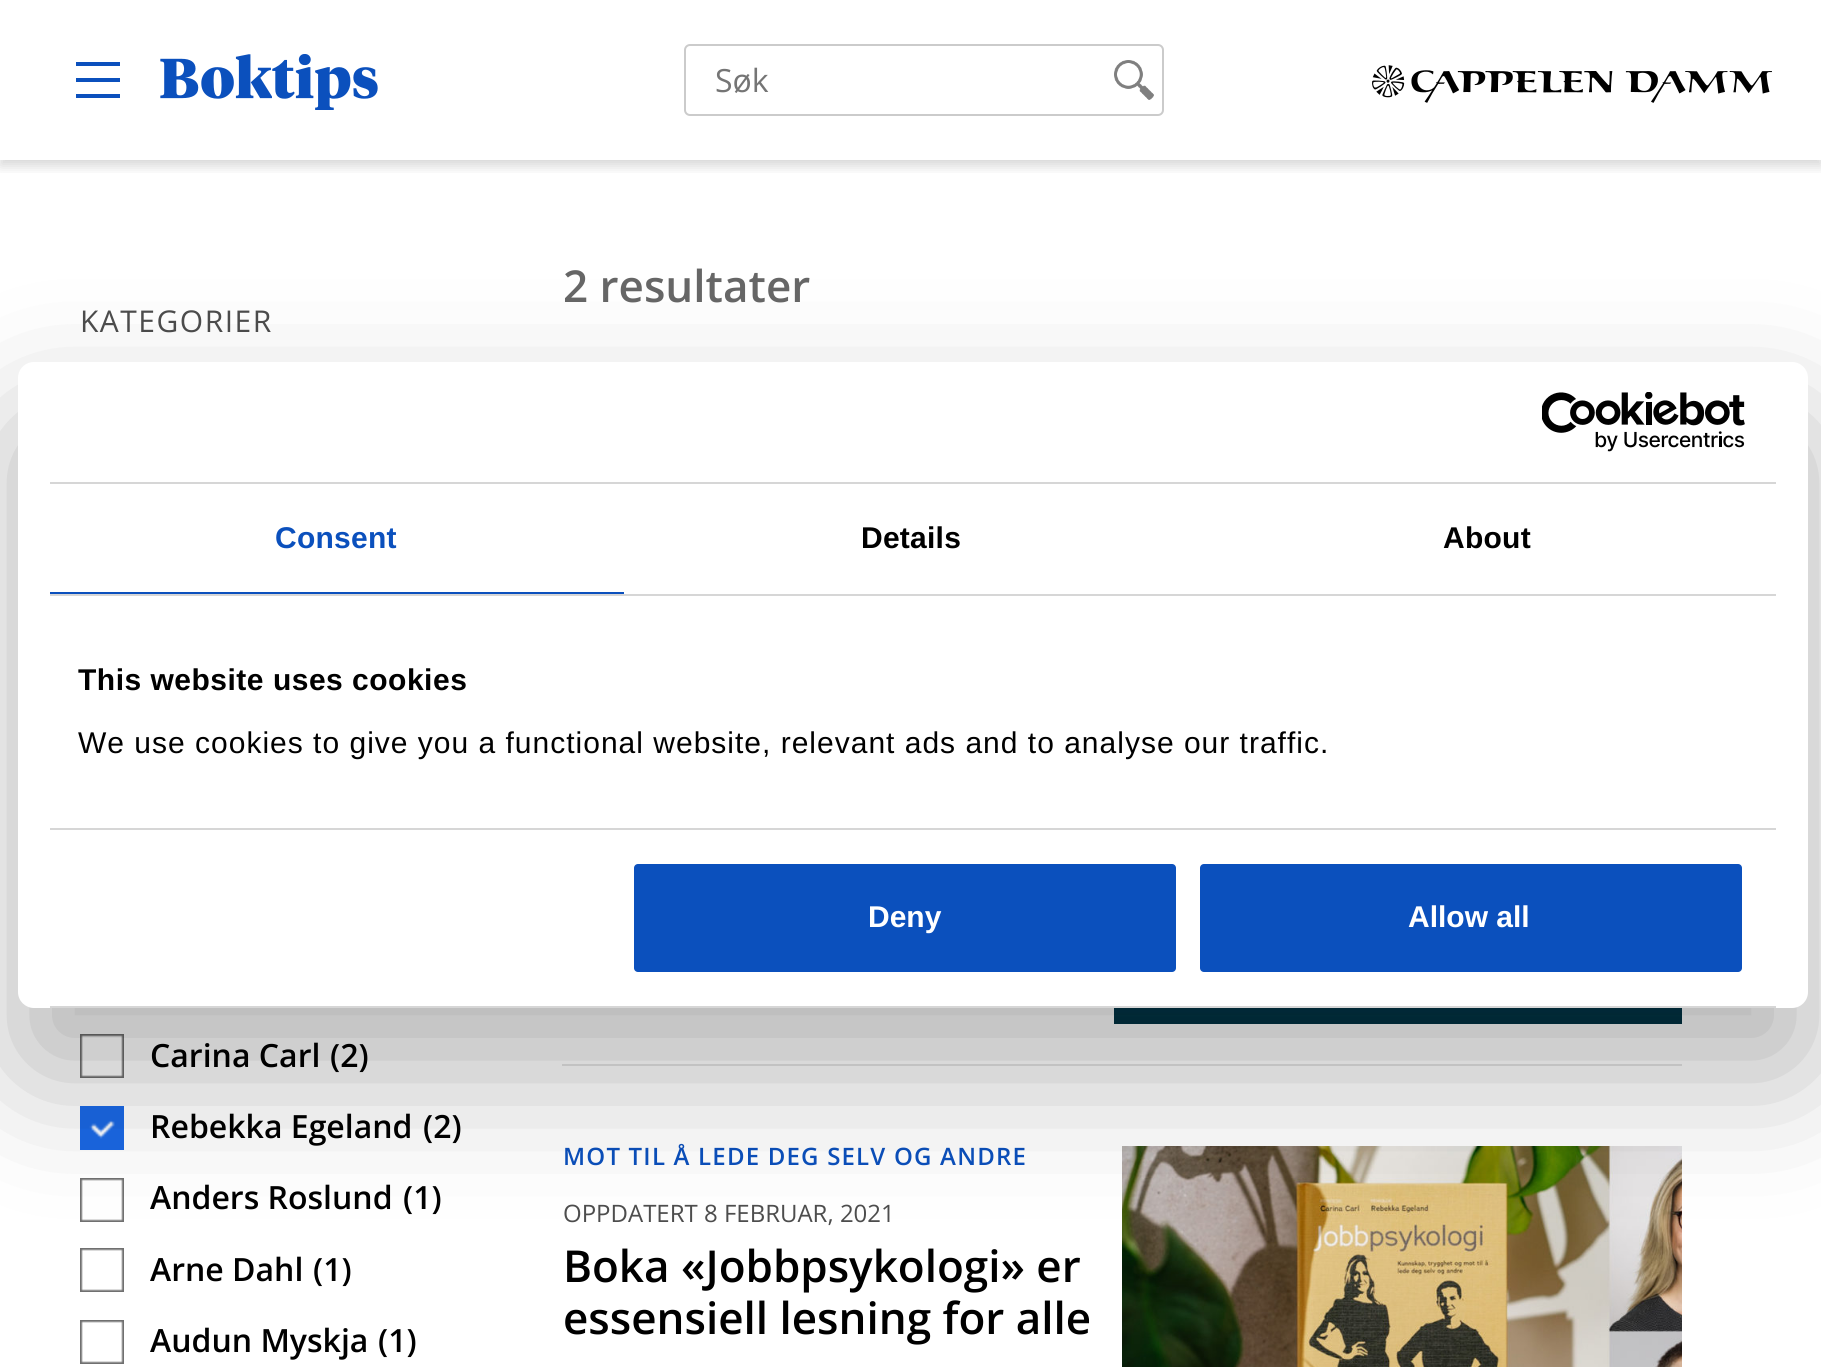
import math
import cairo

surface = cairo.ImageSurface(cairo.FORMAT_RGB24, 1821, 1367)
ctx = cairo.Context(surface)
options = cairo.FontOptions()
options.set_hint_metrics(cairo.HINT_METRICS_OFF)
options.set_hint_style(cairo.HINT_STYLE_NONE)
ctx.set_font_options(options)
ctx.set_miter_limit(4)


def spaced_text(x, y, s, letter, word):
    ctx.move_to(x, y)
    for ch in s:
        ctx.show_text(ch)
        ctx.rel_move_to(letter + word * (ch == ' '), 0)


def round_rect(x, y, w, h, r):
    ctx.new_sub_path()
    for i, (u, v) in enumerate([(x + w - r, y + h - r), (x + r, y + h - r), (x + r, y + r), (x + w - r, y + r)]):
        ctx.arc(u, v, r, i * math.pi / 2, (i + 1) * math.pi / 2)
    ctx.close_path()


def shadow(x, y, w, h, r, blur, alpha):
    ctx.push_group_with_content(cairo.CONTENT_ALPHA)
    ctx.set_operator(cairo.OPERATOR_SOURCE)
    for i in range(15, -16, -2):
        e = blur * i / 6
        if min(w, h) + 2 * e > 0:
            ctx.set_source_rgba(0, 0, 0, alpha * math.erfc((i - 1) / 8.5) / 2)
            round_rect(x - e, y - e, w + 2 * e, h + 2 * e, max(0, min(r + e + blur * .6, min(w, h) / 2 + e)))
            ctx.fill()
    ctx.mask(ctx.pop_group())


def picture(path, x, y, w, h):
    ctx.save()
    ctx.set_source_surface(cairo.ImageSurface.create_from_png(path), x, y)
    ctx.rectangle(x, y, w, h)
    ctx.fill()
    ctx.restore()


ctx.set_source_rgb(1, 1, 1)
ctx.paint()
ctx.save()
ctx.rectangle(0, 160, 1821, 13)
ctx.clip()
ctx.set_source_rgb(0, 0, 0)
shadow(0, 6, 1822, 160, 0, 6, 0.16)
ctx.restore()
ctx.set_source_rgb(0.043, 0.314, 0.741)
ctx.new_path()
ctx.move_to(76, 62)
ctx.line_to(120, 62)
ctx.line_to(120, 66)
ctx.line_to(76, 66)
ctx.close_path()
ctx.move_to(76, 78)
ctx.line_to(120, 78)
ctx.line_to(120, 82)
ctx.line_to(76, 82)
ctx.close_path()
ctx.move_to(76, 94)
ctx.line_to(120, 94)
ctx.line_to(120, 98)
ctx.line_to(76, 98)
ctx.close_path()
ctx.fill()
picture("img1.png", 160, 54, 218, 56)
round_rect(685, 45, 478, 70, 5)
ctx.set_source_rgb(0.796, 0.796, 0.796)
ctx.stroke()
ctx.select_font_face("Open Sans")
ctx.set_font_size(32)
ctx.set_source_rgb(0.459, 0.459, 0.459)
ctx.move_to(715, 92)
ctx.show_text("Søk")
picture("img2.png", 1114, 60, 40, 40)
picture("img3.png", 1372, 65, 400, 38)
ctx.set_font_size(30)
ctx.set_source_rgb(0.302, 0.302, 0.302)
spaced_text(80, 332, "KATEGORIER", 1.5, 0)
picture("img4.png", 80, 1034, 44, 44)
ctx.select_font_face("Open Sans SemiBold")
ctx.set_font_size(32)
ctx.set_source_rgb(0, 0, 0)
ctx.move_to(150, 1067)
ctx.show_text("Carina Carl")
ctx.move_to(330, 1067)
ctx.show_text("(2)")
picture("img5.png", 80, 1106, 44, 44)
ctx.move_to(150, 1138)
ctx.show_text("Rebekka Egeland")
ctx.move_to(423, 1138)
ctx.show_text("(2)")
picture("img4.png", 80, 1178, 44, 44)
ctx.move_to(150, 1209)
ctx.show_text("Anders Roslund")
ctx.move_to(403, 1209)
ctx.show_text("(1)")
picture("img4.png", 80, 1248, 44, 44)
ctx.move_to(150, 1281)
ctx.show_text("Arne Dahl")
ctx.move_to(313, 1281)
ctx.show_text("(1)")
picture("img4.png", 80, 1320, 44, 44)
ctx.move_to(150, 1352)
ctx.show_text("Audun Myskja")
ctx.move_to(378, 1352)
ctx.show_text("(1)")
ctx.set_font_size(44)
ctx.set_source_rgb(0.4, 0.4, 0.4)
ctx.move_to(563, 302)
ctx.show_text("2 resultater")
ctx.set_source_rgb(0.894, 0.894, 0.894)
ctx.rectangle(562, 1064, 1120, 2)
ctx.fill()
picture("img6.png", 1114, 1008, 568, 16)
ctx.set_font_size(24)
ctx.set_source_rgb(0.043, 0.314, 0.741)
spaced_text(563, 1165, "MOT TIL Å LEDE DEG SELV OG ANDRE", 1.2, 0)
ctx.select_font_face("Open Sans")
ctx.set_source_rgb(0.302, 0.302, 0.302)
ctx.move_to(563, 1222)
ctx.show_text("OPPDATERT 8 FEBRUAR, 2021")
ctx.select_font_face("Open Sans SemiBold")
ctx.set_font_size(44)
ctx.set_source_rgb(0, 0, 0)
ctx.move_to(563, 1282)
ctx.show_text("Boka «Jobbpsykologi» er")
ctx.move_to(563, 1334)
ctx.show_text("essensiell lesning for alle")
picture("img7.png", 1122, 1146, 560, 221)
ctx.set_source_rgb(0, 0, 0)
shadow(18, 426, 1790, 646, 16, 68, 0.3)
ctx.set_source_rgb(1, 1, 1)
round_rect(18, 362, 1790, 646, 16)
ctx.fill()
ctx.set_source_rgb(0.839, 0.839, 0.839)
ctx.rectangle(50, 482, 1726, 2)
ctx.fill()
picture("img8.png", 1542, 392, 203, 60)
ctx.rectangle(50, 594, 1726, 2)
ctx.fill()
ctx.set_source_rgb(0.043, 0.314, 0.741)
ctx.rectangle(50, 592, 574, 2)
ctx.fill()
ctx.select_font_face("Liberation Sans", cairo.FONT_SLANT_NORMAL, cairo.FONT_WEIGHT_BOLD)
ctx.set_font_size(30)
spaced_text(275, 548, "Consent", 0.25, 0)
ctx.set_source_rgb(0, 0, 0)
spaced_text(861, 548, "Details", 0.25, 0)
spaced_text(1443, 548, "About", 0.25, 0)
ctx.set_source_rgb(0.839, 0.839, 0.839)
ctx.rectangle(50, 828, 1726, 2)
ctx.fill()
ctx.set_source_rgb(0, 0, 0)
spaced_text(78, 690, "This website uses cookies", 0.5, 0)
ctx.select_font_face("Liberation Sans")
spaced_text(78, 753, "We use cookies to give you a functional website, relevant ads and to analyse our traffic.", 1, 0)
ctx.set_source_rgb(0.839, 0.839, 0.839)
ctx.rectangle(50, 1006, 1726, 2)
ctx.fill()
ctx.set_source_rgb(0.043, 0.314, 0.741)
round_rect(632, 862, 546, 112, 6)
ctx.fill_preserve()
ctx.set_source_rgb(1, 1, 1)
ctx.set_line_width(4)
ctx.stroke()
ctx.select_font_face("Liberation Sans", cairo.FONT_SLANT_NORMAL, cairo.FONT_WEIGHT_BOLD)
ctx.move_to(868, 927)
ctx.show_text("Deny")
ctx.set_source_rgb(0.043, 0.314, 0.741)
round_rect(1198, 862, 546, 112, 6)
ctx.fill_preserve()
ctx.set_source_rgb(1, 1, 1)
ctx.stroke()
ctx.move_to(1408, 927)
ctx.show_text("Allow all")
surface.write_to_png("page.png")
